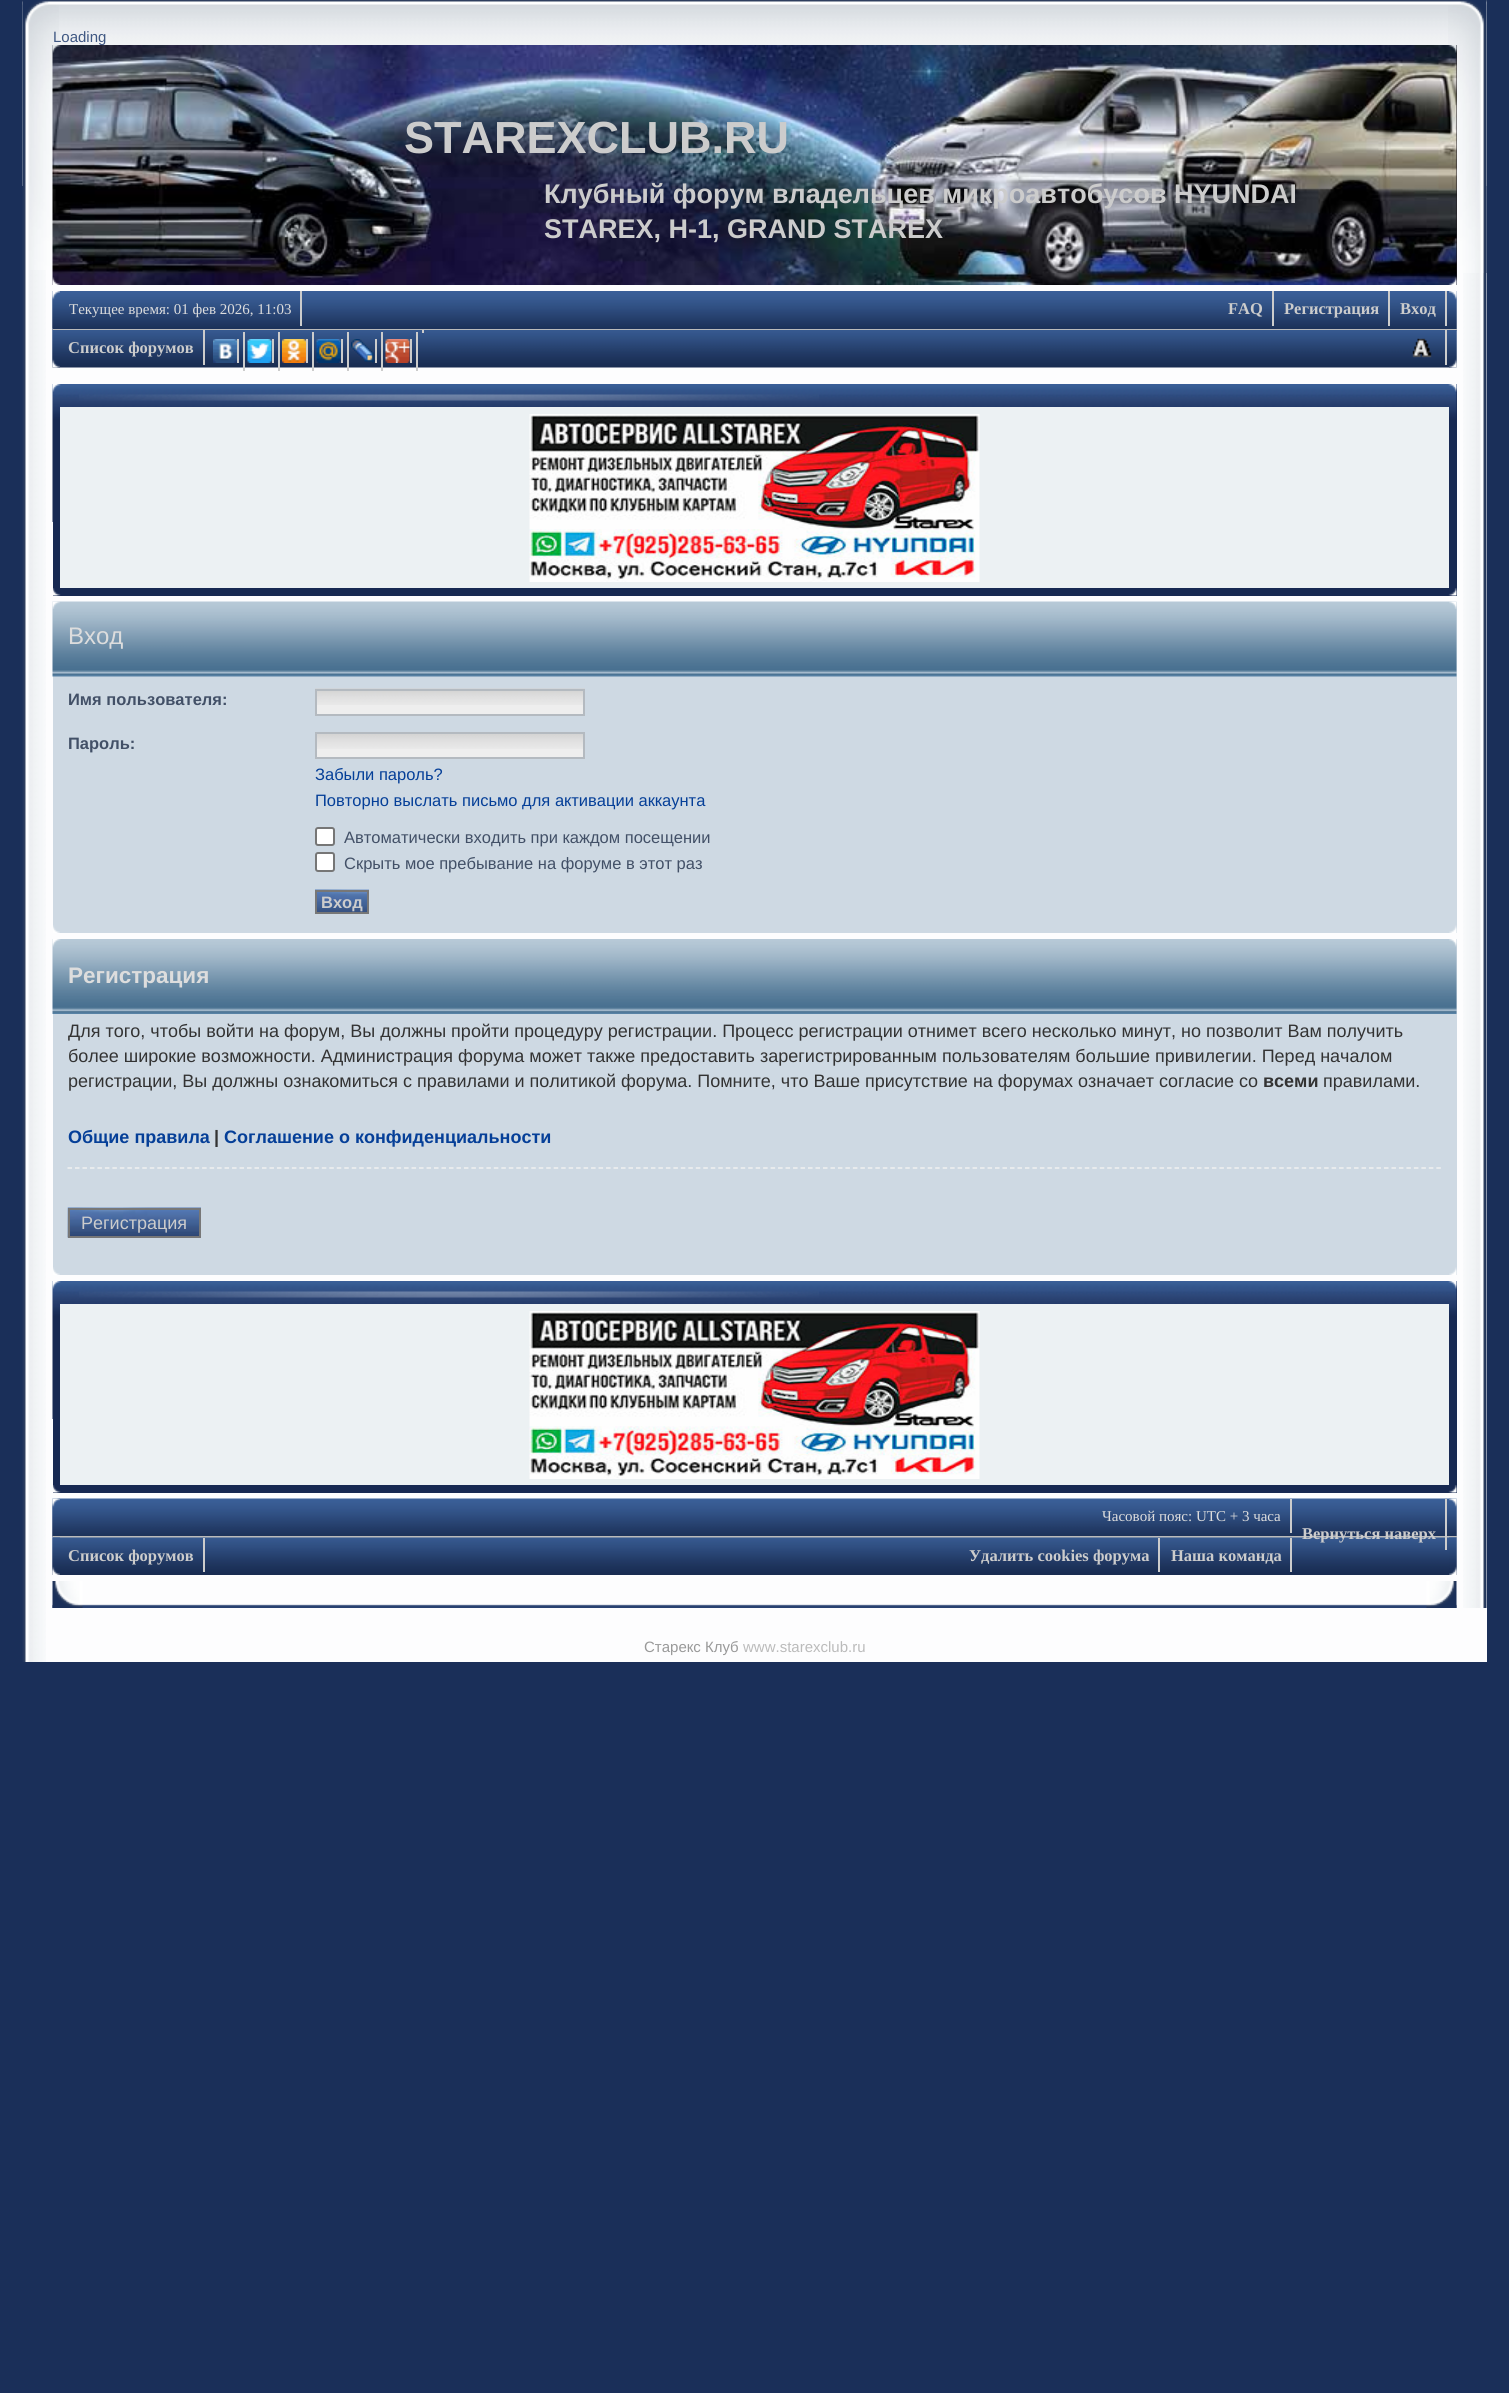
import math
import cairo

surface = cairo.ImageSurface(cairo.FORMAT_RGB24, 1509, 2393)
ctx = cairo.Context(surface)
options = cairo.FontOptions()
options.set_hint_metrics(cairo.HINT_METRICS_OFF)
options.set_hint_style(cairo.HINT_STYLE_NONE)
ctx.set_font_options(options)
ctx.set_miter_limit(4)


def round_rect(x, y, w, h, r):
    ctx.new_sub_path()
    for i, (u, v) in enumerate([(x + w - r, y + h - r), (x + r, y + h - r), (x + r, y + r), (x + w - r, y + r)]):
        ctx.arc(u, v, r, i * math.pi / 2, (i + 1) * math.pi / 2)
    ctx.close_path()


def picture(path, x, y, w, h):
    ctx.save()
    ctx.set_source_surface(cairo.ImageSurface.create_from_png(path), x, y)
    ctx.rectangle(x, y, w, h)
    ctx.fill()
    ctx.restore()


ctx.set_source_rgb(0.102, 0.184, 0.349)
ctx.paint()
ctx.set_source_rgb(0.992, 0.992, 0.996)
ctx.rectangle(46, 0, 1441, 1662)
ctx.fill()
picture("img1.png", 22, 0, 24, 1662)
picture("img2.png", 1463, 0, 24, 1608)
picture("img3.png", 22, 0, 1465, 186)
picture("img4.png", 22, 0, 37, 270)
picture("img5.png", 1448, 0, 39, 273)
ctx.set_source_rgb(0.129, 0.102, 0.129)
ctx.rectangle(1456, 45, 1, 240)
ctx.fill()
picture("img6.png", 52, 45, 1405, 240)
picture("img7.png", 52, 45, 9, 8)
ctx.select_font_face("Liberation Sans")
ctx.set_font_size(15)
ctx.set_source_rgb(0.251, 0.345, 0.514)
ctx.move_to(53, 42)
ctx.show_text("Loading")
picture("img8.png", 1448, 45, 9, 8)
ctx.select_font_face("Liberation Sans", cairo.FONT_SLANT_NORMAL, cairo.FONT_WEIGHT_BOLD)
ctx.set_font_size(45)
ctx.set_source_rgb(0.8, 0.8, 0.8)
ctx.move_to(404, 153)
ctx.show_text("STAREXCLUB.RU")
ctx.set_font_size(27)
ctx.move_to(544, 203)
ctx.show_text("Клубный форум владельцев микроавтобусов HYUNDAI")
ctx.move_to(544, 238)
ctx.show_text("STAREX, H-1, GRAND STAREX")
picture("img9.png", 52, 277, 9, 8)
picture("img10.png", 1448, 277, 9, 8)
picture("img11.png", 52, 291, 1405, 39)
picture("img12.png", 1449, 291, 8, 38)
ctx.set_source_rgb(0.733, 0.733, 0.733)
ctx.rectangle(53, 329, 1404, 2)
ctx.fill()
picture("img13.png", 52, 291, 8, 38)
ctx.set_source_rgb(0.8, 0.8, 0.8)
ctx.rectangle(300, 291, 2, 35)
ctx.fill()
ctx.select_font_face("Liberation Serif")
ctx.set_font_size(15)
ctx.set_source_rgb(0.867, 0.867, 0.867)
ctx.move_to(69, 314)
ctx.show_text("Текущее время: 01 фев 2026, 11:03")
ctx.set_source_rgb(0.8, 0.8, 0.8)
ctx.rectangle(1272, 291, 2, 35)
ctx.fill()
ctx.select_font_face("Liberation Serif", cairo.FONT_SLANT_NORMAL, cairo.FONT_WEIGHT_BOLD)
ctx.set_font_size(16.5)
ctx.move_to(1228, 314)
ctx.show_text("FAQ")
ctx.rectangle(1388, 291, 2, 35)
ctx.fill()
ctx.move_to(1284, 314)
ctx.show_text("Регистрация")
ctx.rectangle(1445, 291, 2, 35)
ctx.fill()
ctx.move_to(1400, 314)
ctx.show_text("Вход")
picture("img14.png", 52, 330, 1405, 38)
picture("img15.png", 1449, 330, 8, 38)
picture("img16.png", 52, 330, 8, 38)
ctx.rectangle(203, 330, 2, 35)
ctx.fill()
ctx.move_to(68, 353)
ctx.show_text("Список форумов")
ctx.rectangle(422, 330, 2, 3)
ctx.fill()
ctx.rectangle(243, 332, 2, 39)
ctx.fill()
picture("img17.png", 213, 339, 24, 24)
ctx.rectangle(237, 339, 2, 24)
ctx.fill()
ctx.rectangle(278, 332, 2, 39)
ctx.fill()
picture("img18.png", 247, 339, 25, 24)
ctx.rectangle(272, 339, 2, 24)
ctx.fill()
ctx.rectangle(312, 332, 2, 39)
ctx.fill()
picture("img19.png", 282, 339, 24, 24)
ctx.rectangle(306, 339, 2, 24)
ctx.fill()
ctx.rectangle(347, 332, 2, 39)
ctx.fill()
picture("img20.png", 316, 339, 25, 24)
ctx.rectangle(341, 339, 2, 24)
ctx.fill()
ctx.rectangle(381, 332, 2, 39)
ctx.fill()
picture("img21.png", 351, 339, 24, 24)
ctx.rectangle(375, 339, 2, 24)
ctx.fill()
ctx.rectangle(416, 332, 2, 39)
ctx.fill()
picture("img22.png", 385, 339, 25, 24)
ctx.rectangle(410, 339, 2, 24)
ctx.fill()
picture("img23.png", 1412, 338, 20, 20)
ctx.rectangle(1445, 330, 2, 35)
ctx.fill()
ctx.set_source_rgb(0.09, 0.161, 0.322)
ctx.rectangle(53, 384, 1404, 212)
ctx.fill()
picture("img24.png", 52, 384, 1405, 138)
picture("img25.png", 52, 384, 9, 8)
picture("img26.png", 1448, 384, 9, 8)
picture("img27.png", 79, 394, 740, 7)
ctx.set_source_rgb(0.925, 0.945, 0.953)
ctx.rectangle(60, 407, 1389, 181)
ctx.fill()
picture("img28.png", 529, 414, 451, 168)
picture("img29.png", 53, 588, 8, 8)
picture("img30.png", 1448, 588, 9, 8)
ctx.set_source_rgb(0.808, 0.851, 0.89)
ctx.rectangle(53, 602, 1404, 331)
ctx.fill()
picture("img31.png", 52, 601, 1405, 76)
picture("img32.png", 52, 601, 8, 8)
picture("img33.png", 1449, 601, 8, 8)
ctx.select_font_face("Liberation Sans")
ctx.set_font_size(24)
ctx.set_source_rgb(0.867, 0.867, 0.867)
ctx.move_to(68, 644)
ctx.show_text("Вход")
ctx.select_font_face("Liberation Sans", cairo.FONT_SLANT_NORMAL, cairo.FONT_WEIGHT_BOLD)
ctx.set_font_size(16.5)
ctx.set_source_rgb(0.259, 0.314, 0.404)
ctx.move_to(68, 705)
ctx.show_text("Имя пользователя:")
ctx.set_source_rgb(0.933, 0.933, 0.933)
ctx.rectangle(317, 705, 266, 9)
ctx.fill()
picture("img34.png", 315, 688, 270, 17)
ctx.rectangle(316, 690, 268, 25)
ctx.set_source_rgb(0.706, 0.729, 0.753)
ctx.stroke()
ctx.set_source_rgb(0.259, 0.314, 0.404)
ctx.move_to(68, 749)
ctx.show_text("Пароль:")
ctx.set_source_rgb(0.933, 0.933, 0.933)
ctx.rectangle(317, 749, 266, 8)
ctx.fill()
picture("img35.png", 317, 734, 266, 15)
ctx.rectangle(316, 733, 268, 25)
ctx.set_source_rgb(0.706, 0.729, 0.753)
ctx.stroke()
ctx.select_font_face("Liberation Sans")
ctx.set_source_rgb(0.02, 0.247, 0.596)
ctx.move_to(315, 780)
ctx.show_text("Забыли пароль?")
ctx.move_to(315, 806)
ctx.show_text("Повторно выслать письмо для активации аккаунта")
ctx.set_source_rgb(1, 1, 1)
round_rect(316, 828, 18, 17, 2)
ctx.fill_preserve()
ctx.set_source_rgb(0.463, 0.463, 0.463)
ctx.stroke()
ctx.set_source_rgb(0.259, 0.314, 0.404)
ctx.move_to(344, 843)
ctx.show_text("Автоматически входить при каждом посещении")
ctx.set_source_rgb(1, 1, 1)
round_rect(316, 853, 18, 18, 2)
ctx.fill_preserve()
ctx.set_source_rgb(0.463, 0.463, 0.463)
ctx.stroke()
ctx.set_source_rgb(0.259, 0.314, 0.404)
ctx.move_to(344, 869)
ctx.show_text("Скрыть мое пребывание на форуме в этот раз")
picture("img36.png", 315, 889, 54, 23)
ctx.rectangle(316, 891, 52, 22)
ctx.set_source_rgb(0.467, 0.467, 0.467)
ctx.stroke()
ctx.select_font_face("Liberation Sans", cairo.FONT_SLANT_NORMAL, cairo.FONT_WEIGHT_BOLD)
ctx.set_source_rgb(0.8, 0.8, 0.8)
ctx.move_to(321, 908)
ctx.show_text("Вход")
picture("img37.png", 53, 925, 7, 8)
picture("img38.png", 1449, 925, 8, 8)
ctx.set_source_rgb(0.808, 0.851, 0.89)
ctx.rectangle(53, 939, 1404, 336)
ctx.fill()
picture("img39.png", 52, 939, 1405, 75)
picture("img40.png", 52, 939, 9, 8)
picture("img41.png", 1449, 939, 8, 8)
ctx.set_font_size(22.5)
ctx.set_source_rgb(0.867, 0.867, 0.867)
ctx.move_to(68, 983)
ctx.show_text("Регистрация")
ctx.save()
ctx.rectangle(68, 947, 1374, 321)
ctx.clip()
ctx.select_font_face("Liberation Sans")
ctx.set_font_size(18)
ctx.set_source_rgb(0.2, 0.2, 0.2)
ctx.move_to(68, 1037)
ctx.show_text("Для того, чтобы войти на форум, Вы должны пройти процедуру регистрации. Процесс регистрации отнимет всего несколько минут, но позволит Вам получить")
ctx.restore()
ctx.select_font_face("Liberation Sans")
ctx.set_font_size(18)
ctx.set_source_rgb(0.2, 0.2, 0.2)
ctx.move_to(68, 1062)
ctx.show_text("более широкие возможности. Администрация форума может также предоставить зарегистрированным пользователям большие привилегии. Перед началом")
ctx.move_to(68, 1087)
ctx.show_text("регистрации, Вы должны ознакомиться с правилами и политикой форума. Помните, что Ваше присутствие на форумах означает согласие со")
ctx.select_font_face("Liberation Sans", cairo.FONT_SLANT_NORMAL, cairo.FONT_WEIGHT_BOLD)
ctx.move_to(1263, 1087)
ctx.show_text("всеми")
ctx.select_font_face("Liberation Sans")
ctx.move_to(1323, 1087)
ctx.show_text("правилами.")
ctx.select_font_face("Liberation Sans", cairo.FONT_SLANT_NORMAL, cairo.FONT_WEIGHT_BOLD)
ctx.set_source_rgb(0.02, 0.247, 0.596)
ctx.move_to(68, 1143)
ctx.show_text("Общие правила")
ctx.set_source_rgb(0.2, 0.2, 0.2)
ctx.move_to(214, 1143)
ctx.show_text("|")
ctx.set_source_rgb(0.02, 0.247, 0.596)
ctx.move_to(224, 1143)
ctx.show_text("Соглашение о конфиденциальности")
ctx.new_path()
ctx.move_to(67.5, 1168)
ctx.line_to(1441.5, 1168)
ctx.set_source_rgb(0.945, 0.945, 0.945)
ctx.set_line_width(1.5)
ctx.set_dash([4.5, 2.98])
ctx.stroke()
picture("img42.png", 67, 1207, 134, 31)
ctx.rectangle(69, 1209, 131, 28)
ctx.set_source_rgb(0.467, 0.467, 0.467)
ctx.set_line_width(2)
ctx.set_dash([])
ctx.stroke()
ctx.select_font_face("Liberation Sans")
ctx.set_source_rgb(0.8, 0.8, 0.8)
ctx.move_to(81, 1229)
ctx.show_text("Регистрация")
picture("img37.png", 53, 1267, 7, 8)
picture("img38.png", 1449, 1267, 8, 8)
ctx.set_source_rgb(0.09, 0.161, 0.322)
ctx.rectangle(53, 1281, 1404, 212)
ctx.fill()
picture("img43.png", 52, 1281, 1405, 138)
picture("img44.png", 52, 1281, 9, 8)
picture("img45.png", 1448, 1281, 9, 8)
picture("img46.png", 79, 1291, 740, 7)
ctx.set_source_rgb(0.925, 0.945, 0.953)
ctx.rectangle(60, 1304, 1389, 181)
ctx.fill()
picture("img47.png", 529, 1311, 451, 168)
picture("img29.png", 53, 1485, 8, 8)
picture("img30.png", 1448, 1485, 9, 8)
picture("img48.png", 52, 1498, 1405, 40)
picture("img49.png", 1449, 1498, 8, 38)
ctx.set_source_rgb(0.733, 0.733, 0.733)
ctx.rectangle(53, 1536, 1404, 2)
ctx.fill()
picture("img50.png", 52, 1498, 8, 38)
ctx.set_source_rgb(0.8, 0.8, 0.8)
ctx.rectangle(1290, 1499, 2, 34)
ctx.fill()
ctx.select_font_face("Liberation Serif")
ctx.set_font_size(15)
ctx.set_source_rgb(0.867, 0.867, 0.867)
ctx.move_to(1102, 1521)
ctx.show_text("Часовой пояс: UTC + 3 часа")
picture("img51.png", 52, 1537, 1405, 38)
ctx.select_font_face("Liberation Serif", cairo.FONT_SLANT_NORMAL, cairo.FONT_WEIGHT_BOLD)
ctx.set_font_size(16.5)
ctx.set_source_rgb(0.8, 0.8, 0.8)
ctx.move_to(1302, 1539)
ctx.show_text("Вернуться наверх")
ctx.rectangle(1445, 1499, 2, 51)
ctx.fill()
picture("img52.png", 1449, 1537, 8, 38)
picture("img53.png", 52, 1537, 8, 38)
ctx.rectangle(203, 1538, 2, 34)
ctx.fill()
ctx.move_to(68, 1561)
ctx.show_text("Список форумов")
ctx.rectangle(1158, 1538, 2, 34)
ctx.fill()
ctx.move_to(969, 1561)
ctx.show_text("Удалить cookies форума")
ctx.rectangle(1290, 1538, 2, 34)
ctx.fill()
ctx.move_to(1171, 1561)
ctx.show_text("Наша команда")
picture("img54.png", 52, 1604, 1405, 4)
picture("img55.png", 52, 1581, 31, 27)
picture("img56.png", 1426, 1581, 31, 27)
ctx.select_font_face("Liberation Sans")
ctx.set_font_size(15)
ctx.set_source_rgb(0.6, 0.6, 0.6)
ctx.move_to(644, 1652)
ctx.show_text("Старекс Клуб")
ctx.set_source_rgb(0.733, 0.733, 0.733)
ctx.move_to(743, 1652)
ctx.show_text("www.starexclub.ru")
surface.write_to_png("page.png")
